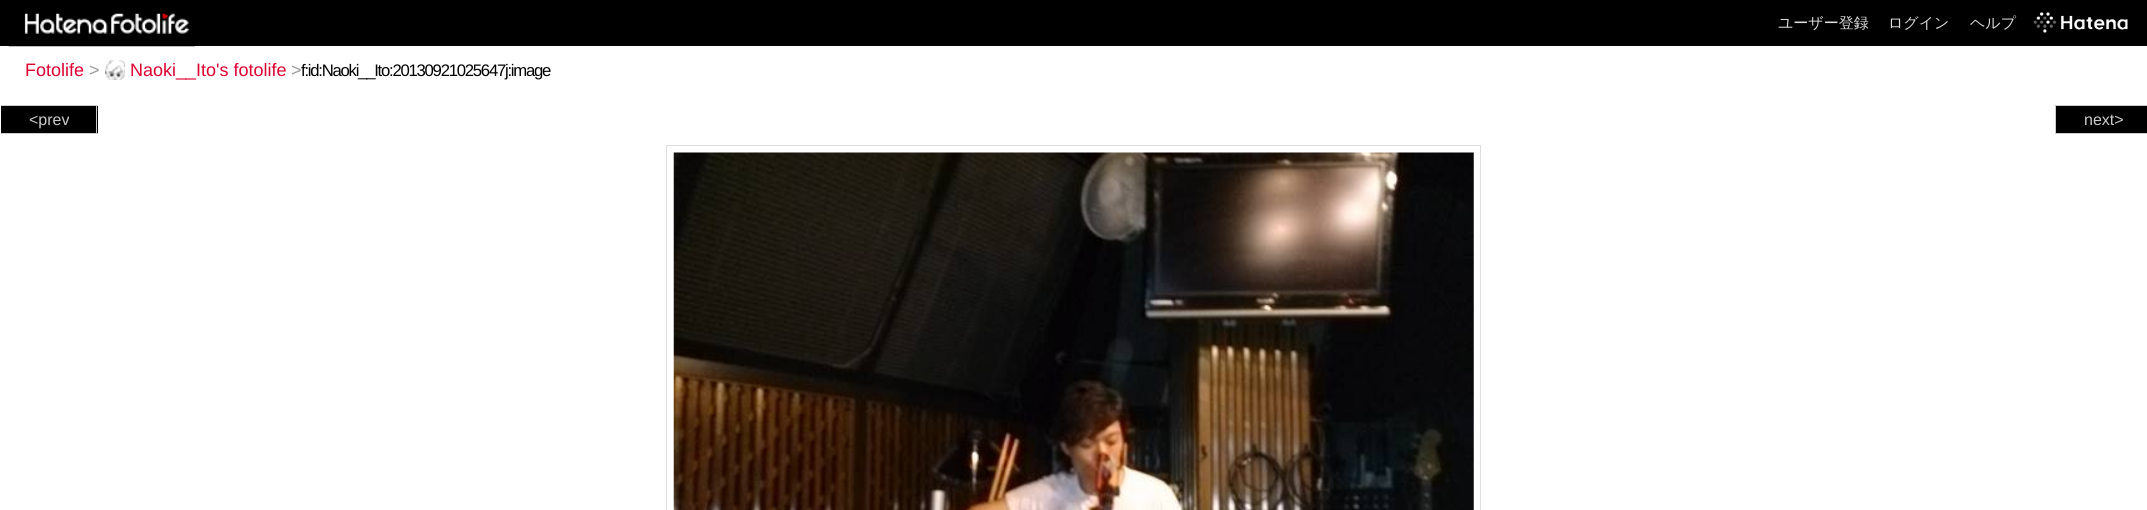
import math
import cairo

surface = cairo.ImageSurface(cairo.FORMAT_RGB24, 2147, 510)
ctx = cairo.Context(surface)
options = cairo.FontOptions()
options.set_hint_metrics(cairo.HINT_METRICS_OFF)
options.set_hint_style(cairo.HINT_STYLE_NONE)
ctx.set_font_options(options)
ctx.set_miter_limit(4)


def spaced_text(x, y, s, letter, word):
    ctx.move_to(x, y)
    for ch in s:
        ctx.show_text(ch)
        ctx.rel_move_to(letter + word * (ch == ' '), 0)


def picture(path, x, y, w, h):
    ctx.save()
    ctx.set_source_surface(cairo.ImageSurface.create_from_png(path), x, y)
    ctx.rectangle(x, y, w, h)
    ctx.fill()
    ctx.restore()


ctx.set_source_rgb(1, 1, 1)
ctx.paint()
ctx.set_source_rgb(0, 0, 0)
ctx.rectangle(0, 0, 2147, 46)
ctx.fill()
picture("img1.png", 8, 13, 104, 34)
picture("img2.png", 111, 13, 84, 34)
ctx.select_font_face("WenQuanYi Zen Hei Medium")
ctx.set_font_size(15)
ctx.set_source_rgb(0.867, 0.867, 0.867)
ctx.move_to(1778, 28)
ctx.show_text("ユーザー登録")
ctx.move_to(1888, 28)
ctx.show_text("ログイン")
ctx.move_to(1970, 28)
ctx.show_text("ヘルプ")
picture("img3.png", 2033, 12, 95, 21)
ctx.select_font_face("Liberation Sans")
ctx.set_font_size(18)
ctx.set_source_rgb(0.871, 0, 0.184)
ctx.move_to(25, 76)
ctx.show_text("Fotolife")
ctx.set_source_rgb(0.6, 0.6, 0.6)
ctx.move_to(89, 76)
ctx.show_text(">")
picture("img4.png", 105, 60, 20, 20)
ctx.set_source_rgb(0.871, 0, 0.184)
ctx.move_to(130, 76)
ctx.show_text("Naoki__Ito's fotolife")
ctx.set_source_rgb(0.6, 0.6, 0.6)
ctx.move_to(291, 76)
ctx.show_text(">")
ctx.set_font_size(16.7)
ctx.set_source_rgb(0, 0, 0)
spaced_text(301, 76, "f:id:Naoki__Ito:20130921025647j:image", -1.25, 0)
ctx.rectangle(1, 106, 97, 27)
ctx.fill()
ctx.set_source_rgb(0.8, 0.8, 0.8)
ctx.rectangle(1, 105, 97, 1)
ctx.fill()
ctx.rectangle(96, 105, 1, 29)
ctx.fill()
ctx.rectangle(1, 133, 97, 1)
ctx.fill()
ctx.set_font_size(16)
ctx.move_to(29, 125)
ctx.show_text("<prev")
ctx.set_source_rgb(0, 0, 0)
ctx.rectangle(2056, 106, 91, 27)
ctx.fill()
ctx.set_source_rgb(0.8, 0.8, 0.8)
ctx.rectangle(2055, 105, 92, 1)
ctx.fill()
ctx.rectangle(2055, 133, 92, 1)
ctx.fill()
ctx.rectangle(2055, 105, 1, 29)
ctx.fill()
ctx.move_to(2084, 125)
ctx.show_text("next>")
ctx.rectangle(666.5, 145.5, 814, 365)
ctx.set_source_rgb(0.871, 0.871, 0.871)
ctx.set_line_width(1)
ctx.stroke()
picture("img5.png", 673, 152, 801, 358)
surface.write_to_png("page.png")
